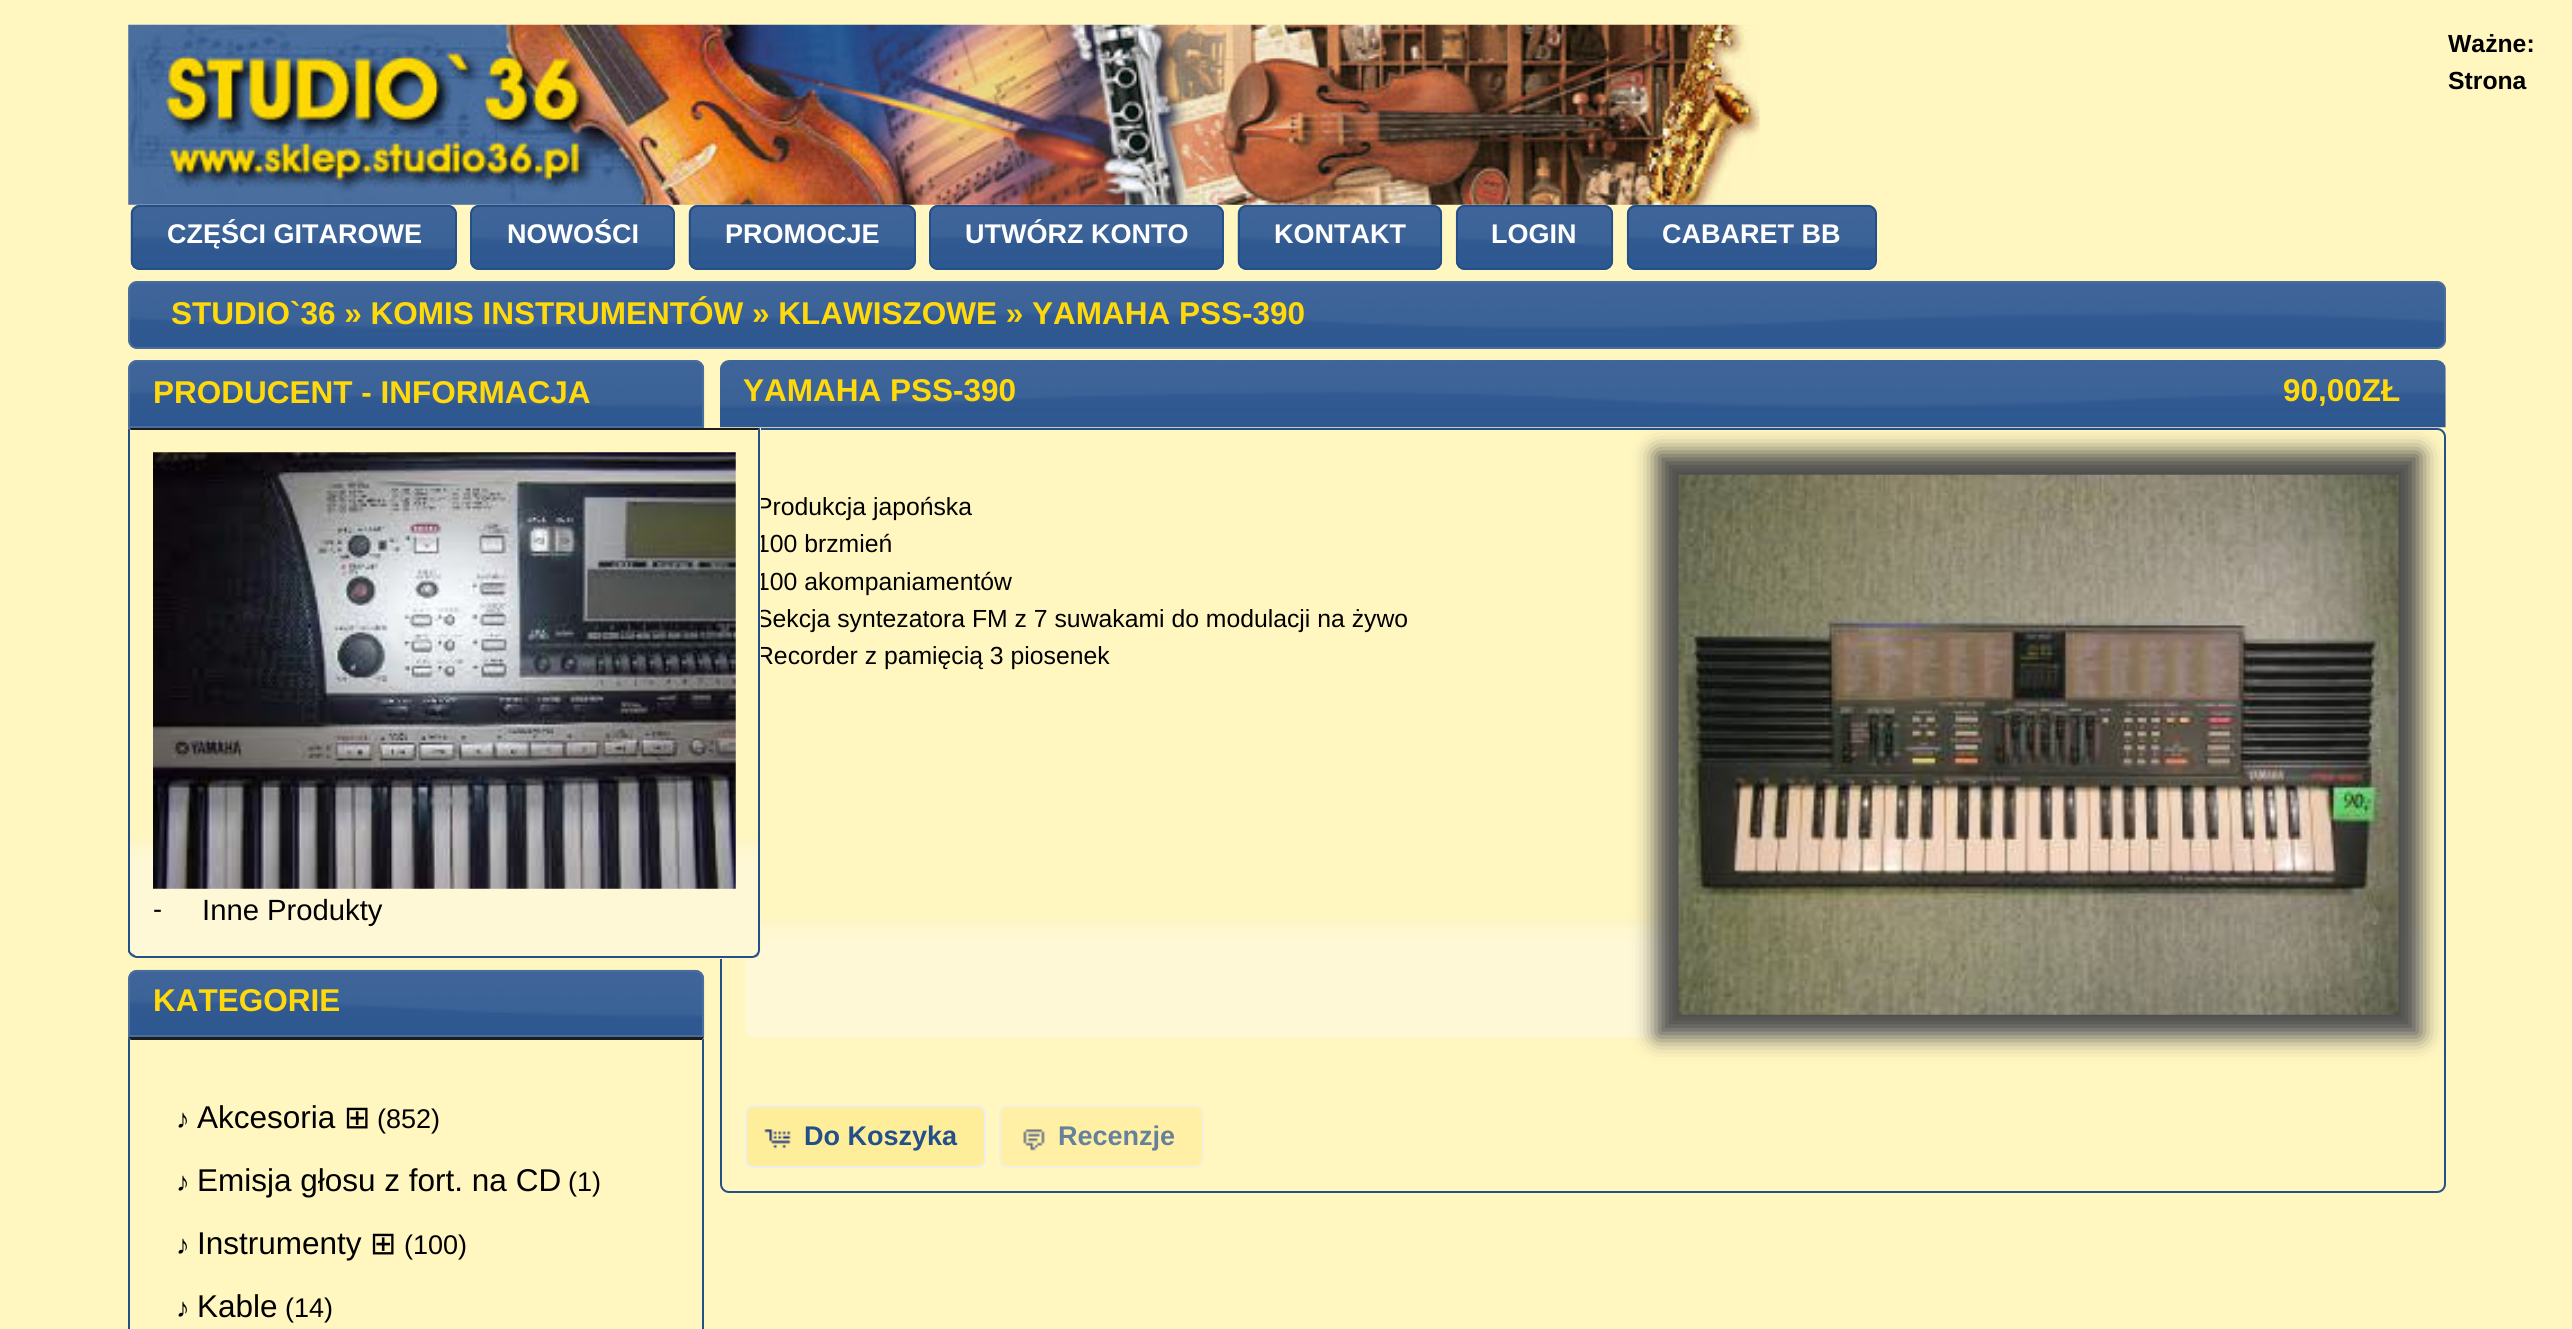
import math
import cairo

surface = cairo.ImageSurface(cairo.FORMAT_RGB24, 2572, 1329)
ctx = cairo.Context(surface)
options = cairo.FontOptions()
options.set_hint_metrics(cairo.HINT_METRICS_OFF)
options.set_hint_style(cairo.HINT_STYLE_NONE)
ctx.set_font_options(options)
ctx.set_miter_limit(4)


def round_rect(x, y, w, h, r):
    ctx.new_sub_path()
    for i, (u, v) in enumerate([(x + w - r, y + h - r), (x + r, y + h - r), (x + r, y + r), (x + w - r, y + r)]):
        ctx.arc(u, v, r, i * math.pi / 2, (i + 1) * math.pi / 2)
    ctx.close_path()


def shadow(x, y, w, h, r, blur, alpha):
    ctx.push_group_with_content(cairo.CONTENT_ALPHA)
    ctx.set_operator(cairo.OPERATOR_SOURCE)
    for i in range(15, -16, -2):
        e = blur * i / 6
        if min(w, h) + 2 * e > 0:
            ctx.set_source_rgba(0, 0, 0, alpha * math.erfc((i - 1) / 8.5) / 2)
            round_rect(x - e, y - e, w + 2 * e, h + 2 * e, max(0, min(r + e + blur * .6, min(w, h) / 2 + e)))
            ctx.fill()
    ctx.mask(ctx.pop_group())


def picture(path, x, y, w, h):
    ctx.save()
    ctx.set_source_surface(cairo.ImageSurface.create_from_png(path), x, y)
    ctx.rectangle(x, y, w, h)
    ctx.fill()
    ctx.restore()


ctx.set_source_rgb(1, 0.961, 0.753)
ctx.paint()
ctx.select_font_face("Liberation Sans", cairo.FONT_SLANT_NORMAL, cairo.FONT_WEIGHT_BOLD)
ctx.set_font_size(24.75)
ctx.set_source_rgb(0, 0, 0)
ctx.move_to(2448, 52)
ctx.show_text("Ważne:")
ctx.move_to(2448, 89)
ctx.show_text("Strona")
picture("img1.png", 128, 24, 1632, 181)
picture("img2.png", 130, 205, 327, 65)
round_rect(132, 206, 324, 63, 8)
ctx.set_source_rgb(0.137, 0.31, 0.545)
ctx.stroke()
ctx.set_font_size(27)
ctx.set_source_rgb(1, 1, 1)
ctx.move_to(167, 243)
ctx.show_text("CZĘŚCI GITAROWE")
picture("img3.png", 470, 204, 205, 66)
round_rect(471, 206, 203, 63, 8)
ctx.set_source_rgb(0.137, 0.31, 0.545)
ctx.stroke()
ctx.set_source_rgb(1, 1, 1)
ctx.move_to(507, 243)
ctx.show_text("NOWOŚCI")
picture("img4.png", 688, 204, 228, 66)
round_rect(690, 206, 225, 63, 8)
ctx.set_source_rgb(0.137, 0.31, 0.545)
ctx.stroke()
ctx.set_source_rgb(1, 1, 1)
ctx.move_to(725, 243)
ctx.show_text("PROMOCJE")
picture("img5.png", 929, 204, 295, 66)
round_rect(930, 206, 293, 63, 8)
ctx.set_source_rgb(0.137, 0.31, 0.545)
ctx.stroke()
ctx.set_source_rgb(1, 1, 1)
ctx.move_to(965, 243)
ctx.show_text("UTWÓRZ KONTO")
picture("img6.png", 1237, 204, 206, 66)
round_rect(1239, 206, 202, 63, 8)
ctx.set_source_rgb(0.137, 0.31, 0.545)
ctx.stroke()
ctx.set_source_rgb(1, 1, 1)
ctx.move_to(1274, 243)
ctx.show_text("KONTAKT")
picture("img7.png", 1455, 204, 159, 66)
round_rect(1457, 206, 155, 63, 8)
ctx.set_source_rgb(0.137, 0.31, 0.545)
ctx.stroke()
ctx.set_source_rgb(1, 1, 1)
ctx.move_to(1491, 243)
ctx.show_text("LOGIN")
picture("img8.png", 1626, 204, 251, 66)
round_rect(1628, 206, 248, 63, 8)
ctx.set_source_rgb(0.137, 0.31, 0.545)
ctx.stroke()
ctx.set_source_rgb(1, 1, 1)
ctx.move_to(1662, 243)
ctx.show_text("CABARET BB")
picture("img9.png", 128, 281, 2318, 68)
round_rect(129, 282, 2316, 66, 8)
ctx.set_source_rgb(0.286, 0.427, 0.616)
ctx.stroke()
ctx.set_font_size(31.5)
ctx.set_source_rgb(1, 0.851, 0.043)
ctx.move_to(171, 324)
ctx.show_text("STUDIO`36 » KOMIS INSTRUMENTÓW » KLAWISZOWE » YAMAHA PSS-390")
picture("img10.png", 128, 360, 577, 67)
ctx.new_path()
ctx.move_to(137, 361)
ctx.line_to(695, 361)
ctx.curve_to(699.5, 361, 703, 364.5, 703, 369)
ctx.line_to(703, 427)
ctx.line_to(129, 427)
ctx.line_to(129, 369)
ctx.curve_to(129, 364.5, 132.5, 361, 137, 361)
ctx.close_path()
ctx.set_source_rgb(0.286, 0.427, 0.616)
ctx.stroke()
ctx.set_source_rgb(1, 0.851, 0.043)
ctx.move_to(153, 403)
ctx.show_text("PRODUCENT - INFORMACJA")
round_rect(721, 429, 1724, 763, 8)
ctx.set_source_rgb(0.137, 0.31, 0.545)
ctx.stroke()
picture("img15.png", 745, 919, 1676, 118)
ctx.select_font_face("Liberation Sans")
ctx.set_font_size(24.75)
ctx.set_source_rgb(0, 0, 0)
ctx.move_to(756, 515)
ctx.show_text("Produkcja japońska")
ctx.move_to(756, 552)
ctx.show_text("100 brzmień")
ctx.move_to(756, 590)
ctx.show_text("100 akompaniamentów")
ctx.move_to(756, 627)
ctx.show_text("Sekcja syntezatora FM z 7 suwakami do modulacji na żywo")
ctx.move_to(756, 664)
ctx.show_text("Recorder z pamięcią 3 piosenek")
ctx.set_source_rgb(1, 0.961, 0.753)
ctx.new_path()
ctx.move_to(128, 428)
ctx.line_to(761, 428)
ctx.line_to(761, 950)
ctx.curve_to(761, 955, 757, 959, 752, 959)
ctx.line_to(137, 959)
ctx.curve_to(132, 959, 128, 955, 128, 950)
ctx.close_path()
ctx.fill()
picture("img11.png", 128, 838, 633, 119)
ctx.set_source_rgb(0.114, 0.114, 0.114)
ctx.new_path()
ctx.move_to(760, 428)
ctx.line_to(129, 428)
ctx.line_to(131, 430)
ctx.line_to(758, 430)
ctx.close_path()
ctx.fill()
ctx.set_source_rgb(0.137, 0.31, 0.545)
ctx.new_path()
ctx.move_to(758, 956)
ctx.curve_to(759, 954, 760, 952, 760, 950)
ctx.line_to(760, 428)
ctx.line_to(758, 430)
ctx.line_to(758, 950)
ctx.curve_to(758, 952, 757, 953, 756, 954)
ctx.close_path()
ctx.fill()
ctx.new_path()
ctx.move_to(758, 956)
ctx.curve_to(756, 957, 754, 958, 752, 958)
ctx.line_to(137, 958)
ctx.curve_to(135, 958, 133, 957, 131, 956)
ctx.line_to(133, 954)
ctx.line_to(136, 956)
ctx.line_to(752, 956)
ctx.curve_to(754, 956, 755, 955, 756, 954)
ctx.close_path()
ctx.fill()
ctx.new_path()
ctx.move_to(130, 430)
ctx.line_to(130, 950)
ctx.curve_to(130, 952, 131, 953, 133, 954)
ctx.line_to(131, 956)
ctx.curve_to(130, 955, 129, 953, 128, 952)
ctx.line_to(128, 428)
ctx.line_to(131, 430)
ctx.close_path()
ctx.fill()
picture("img12.png", 153, 452, 583, 437)
ctx.set_font_size(27)
ctx.set_source_rgb(0, 0, 0)
ctx.move_to(153, 918)
ctx.show_text("-")
ctx.set_font_size(29.25)
ctx.move_to(202, 920)
ctx.show_text("Inne Produkty")
picture("img13.png", 128, 969, 577, 68)
ctx.new_path()
ctx.move_to(137, 971)
ctx.line_to(695, 971)
ctx.curve_to(699.5, 971, 703, 974.5, 703, 979)
ctx.line_to(703, 1036)
ctx.line_to(129, 1036)
ctx.line_to(129, 979)
ctx.curve_to(129, 974.5, 132.5, 971, 137, 971)
ctx.close_path()
ctx.set_source_rgb(0.286, 0.427, 0.616)
ctx.stroke()
ctx.select_font_face("Liberation Sans", cairo.FONT_SLANT_NORMAL, cairo.FONT_WEIGHT_BOLD)
ctx.set_font_size(31.5)
ctx.set_source_rgb(1, 0.851, 0.043)
ctx.move_to(153, 1011)
ctx.show_text("KATEGORIE")
ctx.set_source_rgb(0.114, 0.114, 0.114)
ctx.new_path()
ctx.move_to(128, 1037)
ctx.line_to(704, 1037)
ctx.line_to(702, 1040)
ctx.line_to(131, 1040)
ctx.close_path()
ctx.fill()
ctx.set_source_rgb(0.137, 0.31, 0.545)
ctx.new_path()
ctx.move_to(704, 1038)
ctx.line_to(704, 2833)
ctx.curve_to(704, 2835, 703, 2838, 702, 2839)
ctx.line_to(700, 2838)
ctx.curve_to(701, 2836, 702, 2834, 702, 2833)
ctx.line_to(702, 1040)
ctx.close_path()
ctx.fill()
ctx.new_path()
ctx.move_to(130, 1040)
ctx.line_to(130, 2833)
ctx.curve_to(130, 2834, 131, 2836, 132, 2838)
ctx.line_to(131, 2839)
ctx.line_to(128, 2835)
ctx.line_to(128, 1037)
ctx.line_to(131, 1040)
ctx.close_path()
ctx.fill()
ctx.select_font_face("Liberation Sans")
ctx.set_font_size(27)
ctx.set_source_rgb(0, 0, 0)
ctx.move_to(176, 1128)
ctx.show_text("♪")
ctx.set_font_size(31.5)
ctx.move_to(197, 1128)
ctx.show_text("Akcesoria")
ctx.select_font_face("DejaVu Sans")
ctx.move_to(344, 1128)
ctx.show_text("⊞")
ctx.select_font_face("Liberation Sans")
ctx.set_font_size(27)
ctx.move_to(377, 1128)
ctx.show_text("(852)")
ctx.move_to(176, 1191)
ctx.show_text("♪")
ctx.set_font_size(31.5)
ctx.move_to(197, 1191)
ctx.show_text("Emisja głosu z fort. na CD")
ctx.set_font_size(27)
ctx.move_to(568, 1191)
ctx.show_text("(1)")
ctx.move_to(176, 1254)
ctx.show_text("♪")
ctx.set_font_size(31.5)
ctx.move_to(197, 1254)
ctx.show_text("Instrumenty")
ctx.select_font_face("DejaVu Sans")
ctx.move_to(370, 1254)
ctx.show_text("⊞")
ctx.select_font_face("Liberation Sans")
ctx.set_font_size(27)
ctx.move_to(404, 1254)
ctx.show_text("(100)")
ctx.move_to(176, 1317)
ctx.show_text("♪")
ctx.set_font_size(31.5)
ctx.move_to(197, 1317)
ctx.show_text("Kable")
ctx.set_font_size(27)
ctx.move_to(285, 1317)
ctx.show_text("(14)")
picture("img14.png", 720, 360, 1726, 68)
ctx.select_font_face("Liberation Sans", cairo.FONT_SLANT_NORMAL, cairo.FONT_WEIGHT_BOLD)
ctx.set_font_size(31.5)
ctx.set_source_rgb(1, 0.851, 0.043)
ctx.move_to(743, 401)
ctx.show_text("YAMAHA PSS-390")
ctx.move_to(2283, 401)
ctx.show_text("90,00ZŁ")
ctx.set_source_rgb(0.302, 0.302, 0.302)
shadow(1656, 452, 765, 585, 0, 11, 1)
picture("img16.png", 1678, 474, 721, 541)
ctx.set_source_rgb(1, 0.933, 0.6)
round_rect(746, 1106, 239, 61, 8)
ctx.fill_preserve()
ctx.set_source_rgb(0.933, 0.933, 0.933)
ctx.stroke()
ctx.set_source_rgb(1, 0.933, 0.6)
round_rect(747, 1107, 236, 59, 7)
ctx.fill()
picture("img17.png", 764, 1129, 27, 20)
ctx.set_font_size(27)
ctx.set_source_rgb(0.137, 0.31, 0.545)
ctx.move_to(804, 1145)
ctx.show_text("Do Koszyka")
round_rect(1000, 1106, 203, 61, 8)
ctx.set_source_rgb(0.953, 0.941, 0.878)
ctx.stroke()
ctx.set_source_rgb(1, 0.941, 0.647)
round_rect(1001, 1107, 201, 59, 7)
ctx.fill()
picture("img18.png", 1023, 1129, 22, 22)
ctx.set_source_rgb(0.396, 0.506, 0.608)
ctx.move_to(1058, 1145)
ctx.show_text("Recenzje")
surface.write_to_png("page.png")
